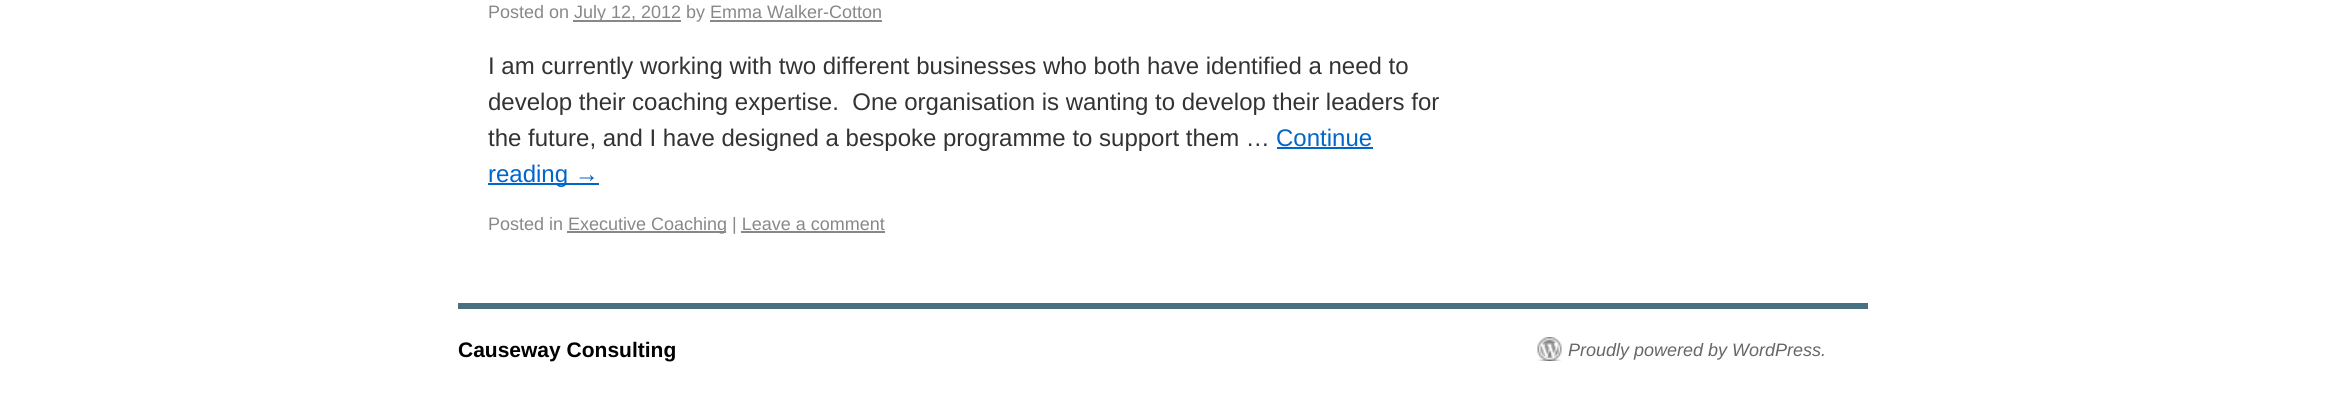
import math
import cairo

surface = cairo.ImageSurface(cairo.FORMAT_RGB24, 2325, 420)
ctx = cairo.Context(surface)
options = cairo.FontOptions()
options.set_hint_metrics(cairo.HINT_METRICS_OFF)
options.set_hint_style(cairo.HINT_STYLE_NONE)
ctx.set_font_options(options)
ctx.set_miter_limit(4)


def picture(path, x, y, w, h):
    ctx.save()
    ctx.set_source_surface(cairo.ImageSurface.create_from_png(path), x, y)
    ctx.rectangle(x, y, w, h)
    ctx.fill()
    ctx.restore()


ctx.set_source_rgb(1, 1, 1)
ctx.paint()
ctx.select_font_face("Liberation Sans")
ctx.set_font_size(18)
ctx.set_source_rgb(0.533, 0.533, 0.533)
ctx.move_to(488, 18)
ctx.show_text("Posted on")
ctx.rectangle(573, 20, 108, 2)
ctx.fill()
ctx.move_to(574, 18)
ctx.show_text("July 12, 2012 by Emma Walker-Cotton")
ctx.rectangle(710, 20, 172, 2)
ctx.fill()
ctx.set_font_size(24)
ctx.set_source_rgb(0.2, 0.2, 0.2)
ctx.move_to(488, 74)
ctx.show_text("I am currently working with two different businesses who both have identified a need to")
ctx.move_to(488, 110)
ctx.show_text("develop their coaching expertise.  One organisation is wanting to develop their leaders for")
ctx.move_to(488, 146)
ctx.show_text("the future, and I have designed a bespoke programme to support them …")
ctx.set_source_rgb(0, 0.4, 0.8)
ctx.move_to(1276, 146)
ctx.show_text("Continue")
ctx.rectangle(1277, 147, 96, 2)
ctx.fill()
ctx.rectangle(488, 183, 111, 2)
ctx.fill()
ctx.move_to(488, 182)
ctx.show_text("reading →")
ctx.set_font_size(18)
ctx.set_source_rgb(0.533, 0.533, 0.533)
ctx.move_to(488, 230)
ctx.show_text("Posted in")
ctx.rectangle(567, 231, 159, 2)
ctx.fill()
ctx.move_to(568, 230)
ctx.show_text("Executive Coaching | Leave a comment")
ctx.rectangle(741, 231, 144, 2)
ctx.fill()
ctx.set_source_rgb(0.286, 0.439, 0.506)
ctx.rectangle(458, 303, 1410, 6)
ctx.fill()
ctx.select_font_face("Liberation Sans", cairo.FONT_SLANT_NORMAL, cairo.FONT_WEIGHT_BOLD)
ctx.set_font_size(21)
ctx.set_source_rgb(0, 0, 0)
ctx.move_to(458, 357)
ctx.show_text("Causeway Consulting")
picture("img1.png", 1537, 337, 25, 24)
ctx.select_font_face("Liberation Sans", cairo.FONT_SLANT_ITALIC)
ctx.set_font_size(18)
ctx.set_source_rgb(0.4, 0.4, 0.4)
ctx.move_to(1568, 356)
ctx.show_text("Proudly powered by WordPress.")
surface.write_to_png("page.png")
